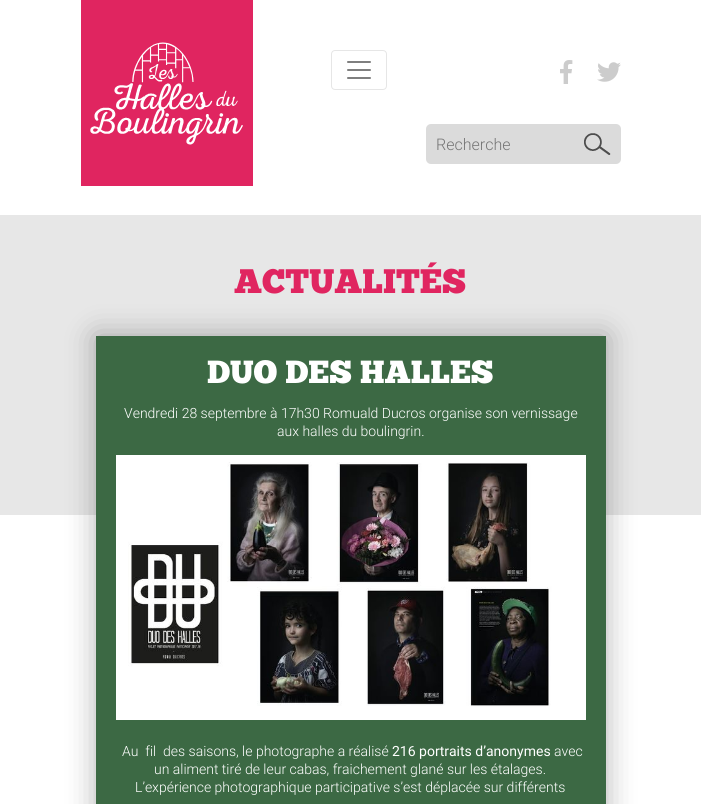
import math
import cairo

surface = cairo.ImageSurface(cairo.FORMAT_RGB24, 701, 804)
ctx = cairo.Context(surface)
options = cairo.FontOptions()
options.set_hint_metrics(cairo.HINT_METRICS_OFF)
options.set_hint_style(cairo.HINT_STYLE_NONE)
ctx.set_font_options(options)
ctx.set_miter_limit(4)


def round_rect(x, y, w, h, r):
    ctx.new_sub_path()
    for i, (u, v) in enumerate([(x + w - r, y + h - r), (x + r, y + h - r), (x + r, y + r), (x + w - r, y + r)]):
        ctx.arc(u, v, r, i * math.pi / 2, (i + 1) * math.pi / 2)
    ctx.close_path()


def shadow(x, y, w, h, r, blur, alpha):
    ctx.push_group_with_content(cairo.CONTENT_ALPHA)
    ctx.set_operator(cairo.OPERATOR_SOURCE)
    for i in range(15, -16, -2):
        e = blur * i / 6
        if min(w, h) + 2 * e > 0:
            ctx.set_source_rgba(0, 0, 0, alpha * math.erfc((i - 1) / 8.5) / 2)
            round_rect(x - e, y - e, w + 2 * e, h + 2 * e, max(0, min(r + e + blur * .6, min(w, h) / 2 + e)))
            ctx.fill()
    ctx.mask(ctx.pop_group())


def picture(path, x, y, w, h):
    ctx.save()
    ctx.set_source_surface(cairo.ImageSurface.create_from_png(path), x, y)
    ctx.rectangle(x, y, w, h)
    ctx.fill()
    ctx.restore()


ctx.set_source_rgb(1, 1, 1)
ctx.paint()
ctx.set_source_rgb(0.878, 0.145, 0.376)
ctx.rectangle(81, 0, 172, 186)
ctx.fill()
picture("img1.png", 90, 42, 153, 103)
round_rect(331.5, 50.5, 55, 39, 3.5)
ctx.set_source_rgb(0.902, 0.902, 0.902)
ctx.set_line_width(1)
ctx.stroke()
picture("img2.png", 347, 61, 24, 18)
picture("img3.png", 560, 60, 13, 24)
picture("img4.png", 597, 62, 24, 20)
ctx.set_source_rgb(0.859, 0.859, 0.859)
round_rect(426, 124, 195, 40, 5)
ctx.fill()
picture("img5.png", 584, 133, 27, 22)
ctx.select_font_face("Roboto Light")
ctx.set_font_size(16)
ctx.set_source_rgb(0.459, 0.459, 0.459)
ctx.move_to(436, 150)
ctx.show_text("Recherche")
ctx.set_source_rgb(0.906, 0.906, 0.906)
ctx.rectangle(0, 215, 701, 300)
ctx.fill()
ctx.select_font_face("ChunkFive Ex")
ctx.set_font_size(34)
ctx.set_source_rgb(0.878, 0.145, 0.376)
ctx.move_to(234, 293)
ctx.show_text("ACTUALITÉS")
ctx.set_source_rgb(0, 0, 0)
shadow(96, 336, 510, 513, 0, 15, 0.3)
ctx.set_source_rgb(0.235, 0.412, 0.267)
ctx.rectangle(96, 336, 510, 468)
ctx.fill()
ctx.set_font_size(32)
ctx.set_source_rgb(1, 1, 1)
ctx.move_to(207, 383)
ctx.show_text("DUO DES HALLES")
ctx.select_font_face("Roboto Light")
ctx.set_font_size(14)
ctx.move_to(124, 418)
ctx.show_text("Vendredi 28 septembre à 17h30 Romuald Ducros organise son vernissage")
ctx.move_to(277, 436)
ctx.show_text("aux halles du boulingrin.")
ctx.rectangle(117, 456, 468, 263)
ctx.set_line_width(2)
ctx.stroke()
picture("img6.png", 118, 457, 466, 261)
ctx.move_to(122, 756)
ctx.show_text("Au  fil  des saisons, le photographe a réalisé")
ctx.select_font_face("Roboto")
ctx.move_to(392, 756)
ctx.show_text("216 portraits d’anonymes")
ctx.select_font_face("Roboto Light")
ctx.move_to(554, 756)
ctx.show_text("avec")
ctx.move_to(154, 774)
ctx.show_text("un aliment tiré de leur cabas, fraichement glané sur les étalages.")
ctx.move_to(135, 792)
ctx.show_text("L’expérience photographique participative s’est déplacée sur différents")
surface.write_to_png("page.png")
